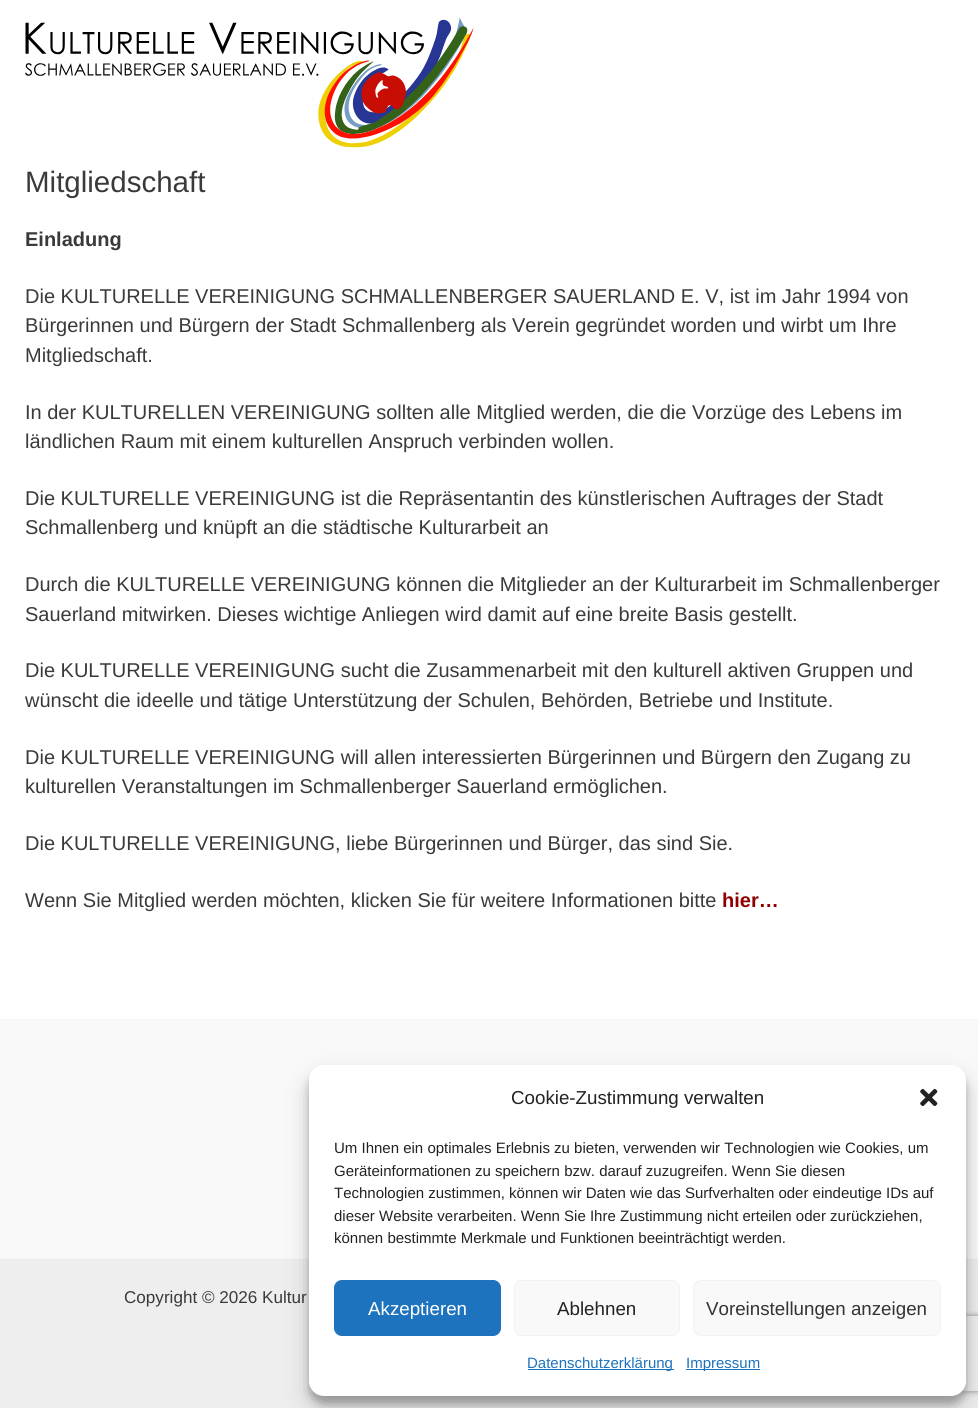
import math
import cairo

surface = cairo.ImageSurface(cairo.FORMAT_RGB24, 978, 1408)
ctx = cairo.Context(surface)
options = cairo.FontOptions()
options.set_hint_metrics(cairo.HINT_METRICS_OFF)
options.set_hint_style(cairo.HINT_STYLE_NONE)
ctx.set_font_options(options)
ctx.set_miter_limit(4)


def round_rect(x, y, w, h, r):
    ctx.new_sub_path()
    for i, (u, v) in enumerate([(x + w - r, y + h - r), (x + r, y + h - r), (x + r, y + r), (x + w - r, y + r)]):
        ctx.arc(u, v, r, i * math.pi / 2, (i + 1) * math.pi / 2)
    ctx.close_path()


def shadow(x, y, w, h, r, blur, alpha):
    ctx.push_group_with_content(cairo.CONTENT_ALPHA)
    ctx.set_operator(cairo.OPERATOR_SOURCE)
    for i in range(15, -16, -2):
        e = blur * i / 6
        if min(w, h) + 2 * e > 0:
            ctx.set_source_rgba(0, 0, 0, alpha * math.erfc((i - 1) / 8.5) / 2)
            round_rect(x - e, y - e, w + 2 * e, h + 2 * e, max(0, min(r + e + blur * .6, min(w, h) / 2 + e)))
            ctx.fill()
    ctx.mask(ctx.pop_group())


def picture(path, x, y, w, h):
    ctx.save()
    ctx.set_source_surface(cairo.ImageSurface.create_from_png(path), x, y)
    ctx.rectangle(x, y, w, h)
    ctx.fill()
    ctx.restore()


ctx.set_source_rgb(1, 1, 1)
ctx.paint()
picture("img1.png", 25, 18, 449, 130)
ctx.select_font_face("Liberation Sans")
ctx.set_font_size(29.5)
ctx.set_source_rgb(0.227, 0.227, 0.227)
ctx.move_to(25, 192)
ctx.show_text("Mitgliedschaft")
ctx.select_font_face("Liberation Sans", cairo.FONT_SLANT_NORMAL, cairo.FONT_WEIGHT_BOLD)
ctx.set_font_size(20)
ctx.move_to(25, 246)
ctx.show_text("Einladung")
ctx.select_font_face("Liberation Sans")
ctx.move_to(25, 303)
ctx.show_text("Die KULTURELLE VEREINIGUNG SCHMALLENBERGER SAUERLAND E. V, ist im Jahr 1994 von")
ctx.move_to(25, 332)
ctx.show_text("Bürgerinnen und Bürgern der Stadt Schmallenberg als Verein gegründet worden und wirbt um Ihre")
ctx.move_to(25, 362)
ctx.show_text("Mitgliedschaft.")
ctx.move_to(25, 419)
ctx.show_text("In der KULTURELLEN VEREINIGUNG sollten alle Mitglied werden, die die Vorzüge des Lebens im")
ctx.move_to(25, 448)
ctx.show_text("ländlichen Raum mit einem kulturellen Anspruch verbinden wollen.")
ctx.move_to(25, 505)
ctx.show_text("Die KULTURELLE VEREINIGUNG ist die Repräsentantin des künstlerischen Auftrages der Stadt")
ctx.move_to(25, 534)
ctx.show_text("Schmallenberg und knüpft an die städtische Kulturarbeit an")
ctx.move_to(25, 591)
ctx.show_text("Durch die KULTURELLE VEREINIGUNG können die Mitglieder an der Kulturarbeit im Schmallenberger")
ctx.move_to(25, 621)
ctx.show_text("Sauerland mitwirken. Dieses wichtige Anliegen wird damit auf eine breite Basis gestellt.")
ctx.move_to(25, 677)
ctx.show_text("Die KULTURELLE VEREINIGUNG sucht die Zusammenarbeit mit den kulturell aktiven Gruppen und")
ctx.move_to(25, 707)
ctx.show_text("wünscht die ideelle und tätige Unterstützung der Schulen, Behörden, Betriebe und Institute.")
ctx.move_to(25, 764)
ctx.show_text("Die KULTURELLE VEREINIGUNG will allen interessierten Bürgerinnen und Bürgern den Zugang zu")
ctx.move_to(25, 793)
ctx.show_text("kulturellen Veranstaltungen im Schmallenberger Sauerland ermöglichen.")
ctx.move_to(25, 850)
ctx.show_text("Die KULTURELLE VEREINIGUNG, liebe Bürgerinnen und Bürger, das sind Sie.")
ctx.move_to(25, 907)
ctx.show_text("Wenn Sie Mitglied werden möchten, klicken Sie für weitere Informationen bitte")
ctx.select_font_face("Liberation Sans", cairo.FONT_SLANT_NORMAL, cairo.FONT_WEIGHT_BOLD)
ctx.set_source_rgb(0.569, 0, 0)
ctx.move_to(722, 907)
ctx.show_text("hier…")
ctx.set_source_rgb(0.976, 0.976, 0.976)
ctx.rectangle(0, 1020, 978, 238)
ctx.fill()
ctx.set_source_rgb(0.949, 0.961, 0.969)
ctx.rectangle(0, 1019, 978, 1)
ctx.fill()
ctx.set_source_rgb(0.933, 0.933, 0.933)
ctx.rectangle(0, 1259, 978, 149)
ctx.fill()
ctx.set_source_rgb(0.949, 0.961, 0.969)
ctx.rectangle(0, 1258, 978, 1)
ctx.fill()
ctx.select_font_face("Liberation Sans")
ctx.set_font_size(17.1)
ctx.set_source_rgb(0.227, 0.227, 0.227)
ctx.move_to(124, 1303)
ctx.show_text("Copyright © 2026 Kultur")
ctx.set_source_rgb(0, 0, 0)
shadow(309, 1073, 657, 331, 15, 4, 0.23)
shadow(309, 1078, 657, 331, 15, 12.5, 0.19)
ctx.save()
ctx.set_fill_rule(cairo.FILL_RULE_EVEN_ODD)
ctx.new_path()
ctx.move_to(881, 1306)
ctx.line_to(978, 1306)
ctx.line_to(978, 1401)
ctx.line_to(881, 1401)
ctx.close_path()
ctx.move_to(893.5, 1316)
ctx.line_to(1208.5, 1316)
ctx.curve_to(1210, 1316, 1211, 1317, 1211, 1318.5)
ctx.line_to(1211, 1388.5)
ctx.curve_to(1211, 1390, 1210, 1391, 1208.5, 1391)
ctx.line_to(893.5, 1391)
ctx.curve_to(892, 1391, 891, 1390, 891, 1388.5)
ctx.line_to(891, 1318.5)
ctx.curve_to(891, 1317, 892, 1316, 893.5, 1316)
ctx.close_path()
ctx.clip()
ctx.set_source_rgb(0.502, 0.502, 0.502)
shadow(891, 1316, 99, 75, 2.5, 3, 1)
ctx.restore()
ctx.set_source_rgb(1, 1, 1)
round_rect(309, 1065, 657, 331, 15)
ctx.fill()
ctx.set_font_size(18.75)
ctx.set_source_rgb(0.133, 0.133, 0.133)
ctx.move_to(511, 1104)
ctx.show_text("Cookie-Zustimmung verwalten")
picture("img2.png", 920, 1088, 18, 19)
ctx.set_font_size(15)
ctx.move_to(334, 1153)
ctx.show_text("Um Ihnen ein optimales Erlebnis zu bieten, verwenden wir Technologien wie Cookies, um")
ctx.move_to(334, 1176)
ctx.show_text("Geräteinformationen zu speichern bzw. darauf zuzugreifen. Wenn Sie diesen")
ctx.move_to(334, 1198)
ctx.show_text("Technologien zustimmen, können wir Daten wie das Surfverhalten oder eindeutige IDs auf")
ctx.move_to(334, 1221)
ctx.show_text("dieser Website verarbeiten. Wenn Sie Ihre Zustimmung nicht erteilen oder zurückziehen,")
ctx.move_to(334, 1243)
ctx.show_text("können bestimmte Merkmale und Funktionen beeinträchtigt werden.")
ctx.set_source_rgb(0.118, 0.451, 0.745)
round_rect(334.5, 1280.5, 166, 55, 7.5)
ctx.fill_preserve()
ctx.set_line_width(1)
ctx.stroke()
ctx.set_font_size(18.75)
ctx.set_source_rgb(1, 1, 1)
ctx.move_to(368, 1315)
ctx.show_text("Akzeptieren")
ctx.set_source_rgb(0.976, 0.976, 0.976)
round_rect(514.5, 1280.5, 165, 55, 7.5)
ctx.fill_preserve()
ctx.set_source_rgb(0.949, 0.949, 0.949)
ctx.stroke()
ctx.set_source_rgb(0.133, 0.133, 0.133)
ctx.move_to(557, 1315)
ctx.show_text("Ablehnen")
ctx.set_source_rgb(0.976, 0.976, 0.976)
round_rect(693.5, 1280.5, 247, 55, 7.5)
ctx.fill_preserve()
ctx.set_source_rgb(0.949, 0.949, 0.949)
ctx.stroke()
ctx.set_source_rgb(0.2, 0.2, 0.2)
ctx.move_to(706, 1315)
ctx.show_text("Voreinstellungen anzeigen")
ctx.set_source_rgb(0.118, 0.451, 0.745)
ctx.rectangle(528, 1369, 146, 1)
ctx.fill()
ctx.set_font_size(15)
ctx.move_to(527, 1368)
ctx.show_text("Datenschutzerklärung")
ctx.rectangle(686, 1369, 74, 1)
ctx.fill()
ctx.move_to(686, 1368)
ctx.show_text("Impressum")
surface.write_to_png("page.png")
